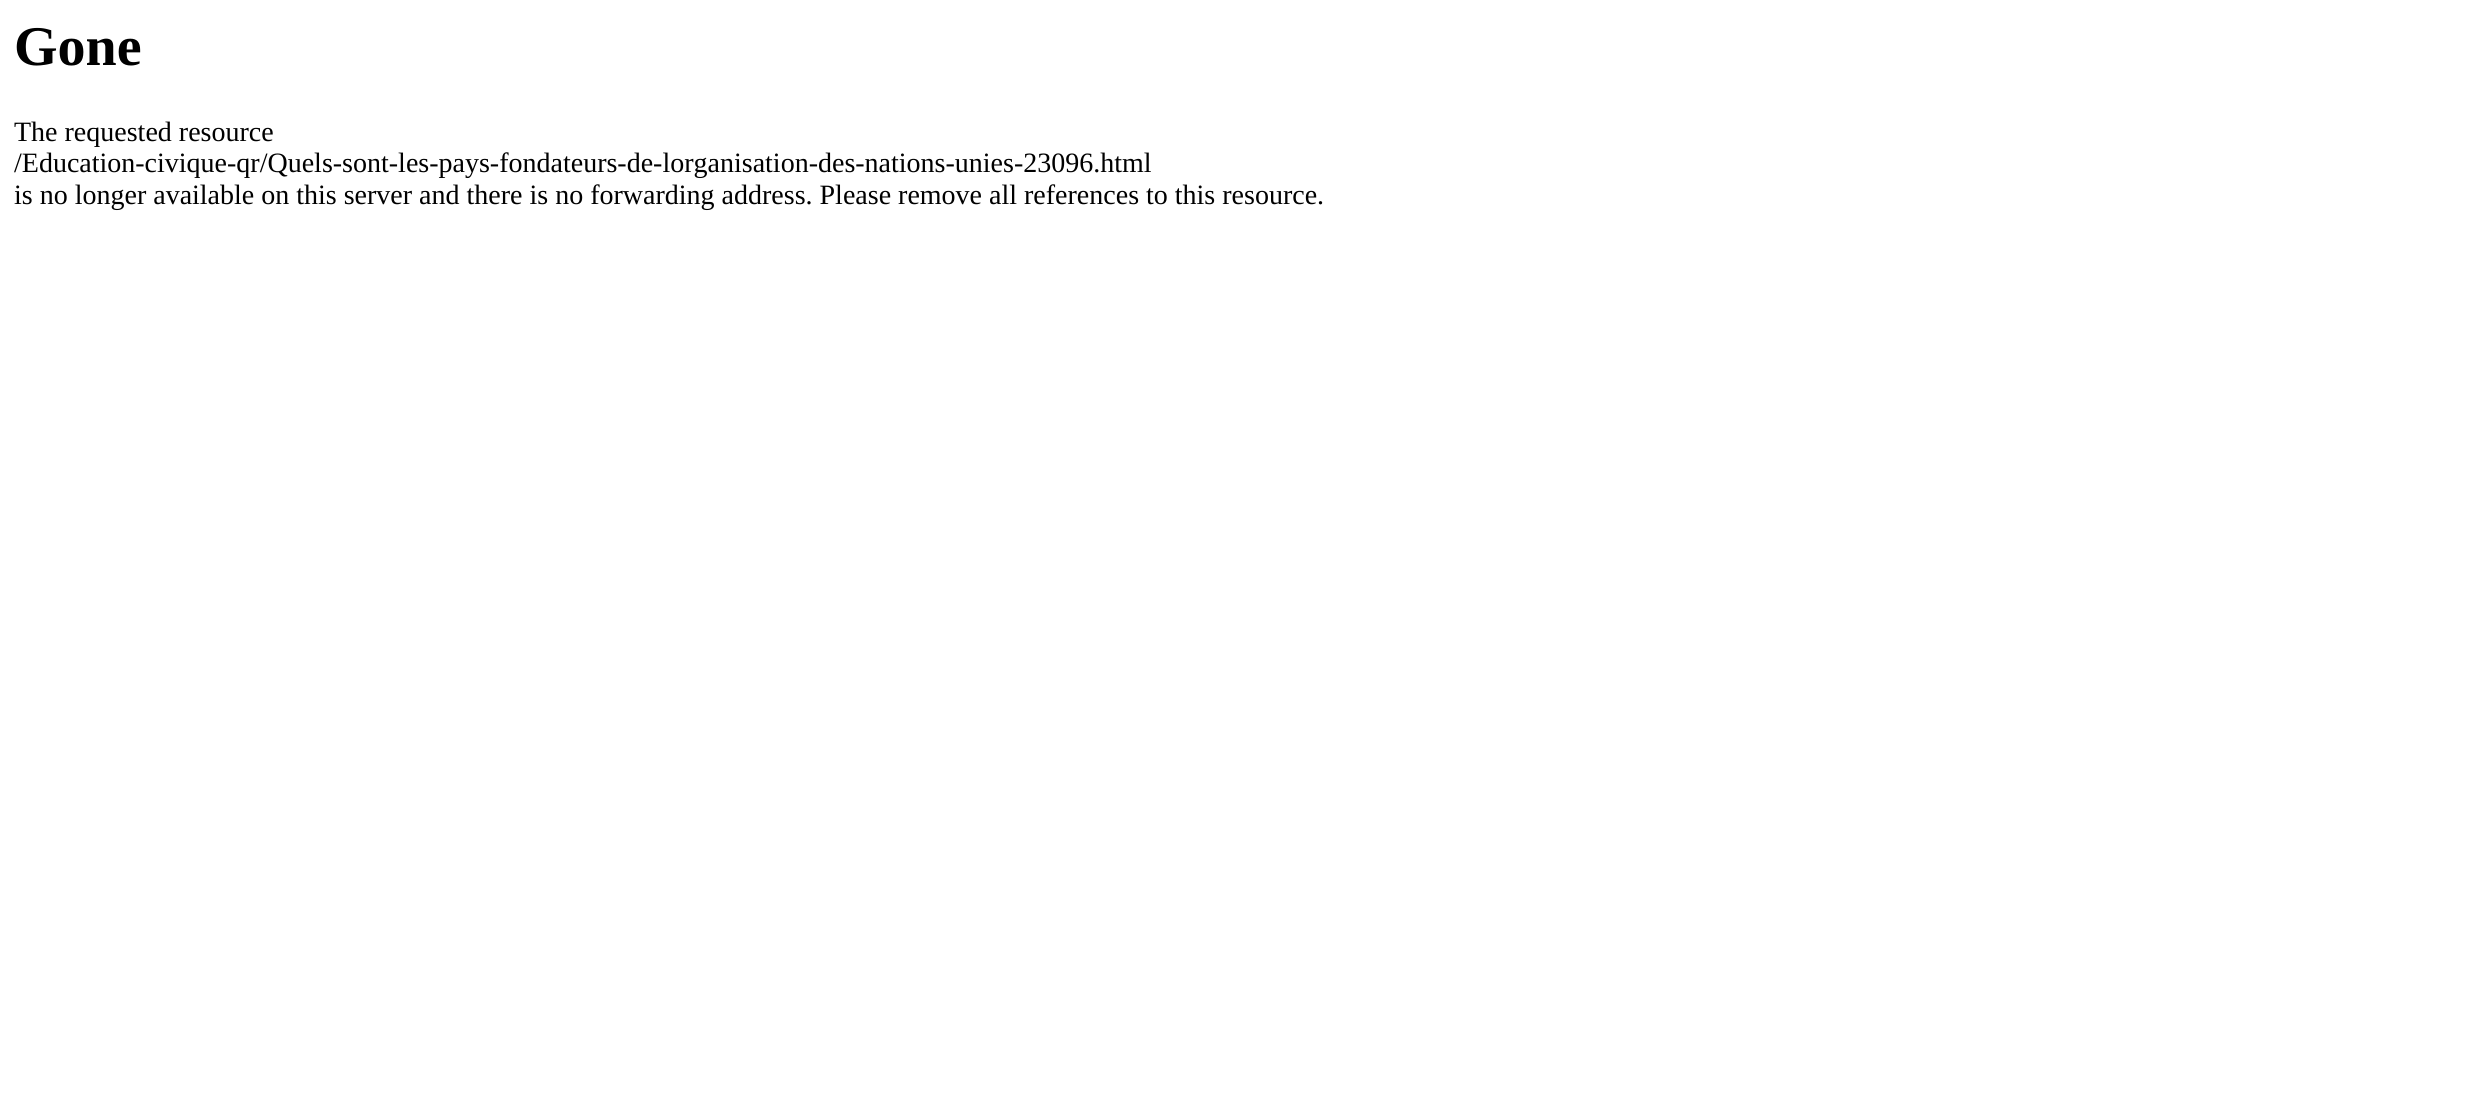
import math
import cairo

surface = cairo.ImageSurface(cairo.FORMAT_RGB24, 2486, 1111)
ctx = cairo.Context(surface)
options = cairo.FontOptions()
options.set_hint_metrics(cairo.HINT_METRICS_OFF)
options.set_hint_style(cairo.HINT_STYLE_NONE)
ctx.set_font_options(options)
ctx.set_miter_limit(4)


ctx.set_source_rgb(1, 1, 1)
ctx.paint()
ctx.select_font_face("Liberation Serif", cairo.FONT_SLANT_NORMAL, cairo.FONT_WEIGHT_BOLD)
ctx.set_font_size(56)
ctx.set_source_rgb(0, 0, 0)
ctx.move_to(14, 65)
ctx.show_text("Gone")
ctx.select_font_face("Liberation Serif")
ctx.set_font_size(28)
ctx.move_to(14, 141)
ctx.show_text("The requested resource")
ctx.move_to(14, 172)
ctx.show_text("/Education-civique-qr/Quels-sont-les-pays-fondateurs-de-lorganisation-des-nations-unies-23096.html")
ctx.move_to(14, 204)
ctx.show_text("is no longer available on this server and there is no forwarding address. Please remove all references to this resource.")
surface.write_to_png("page.png")
